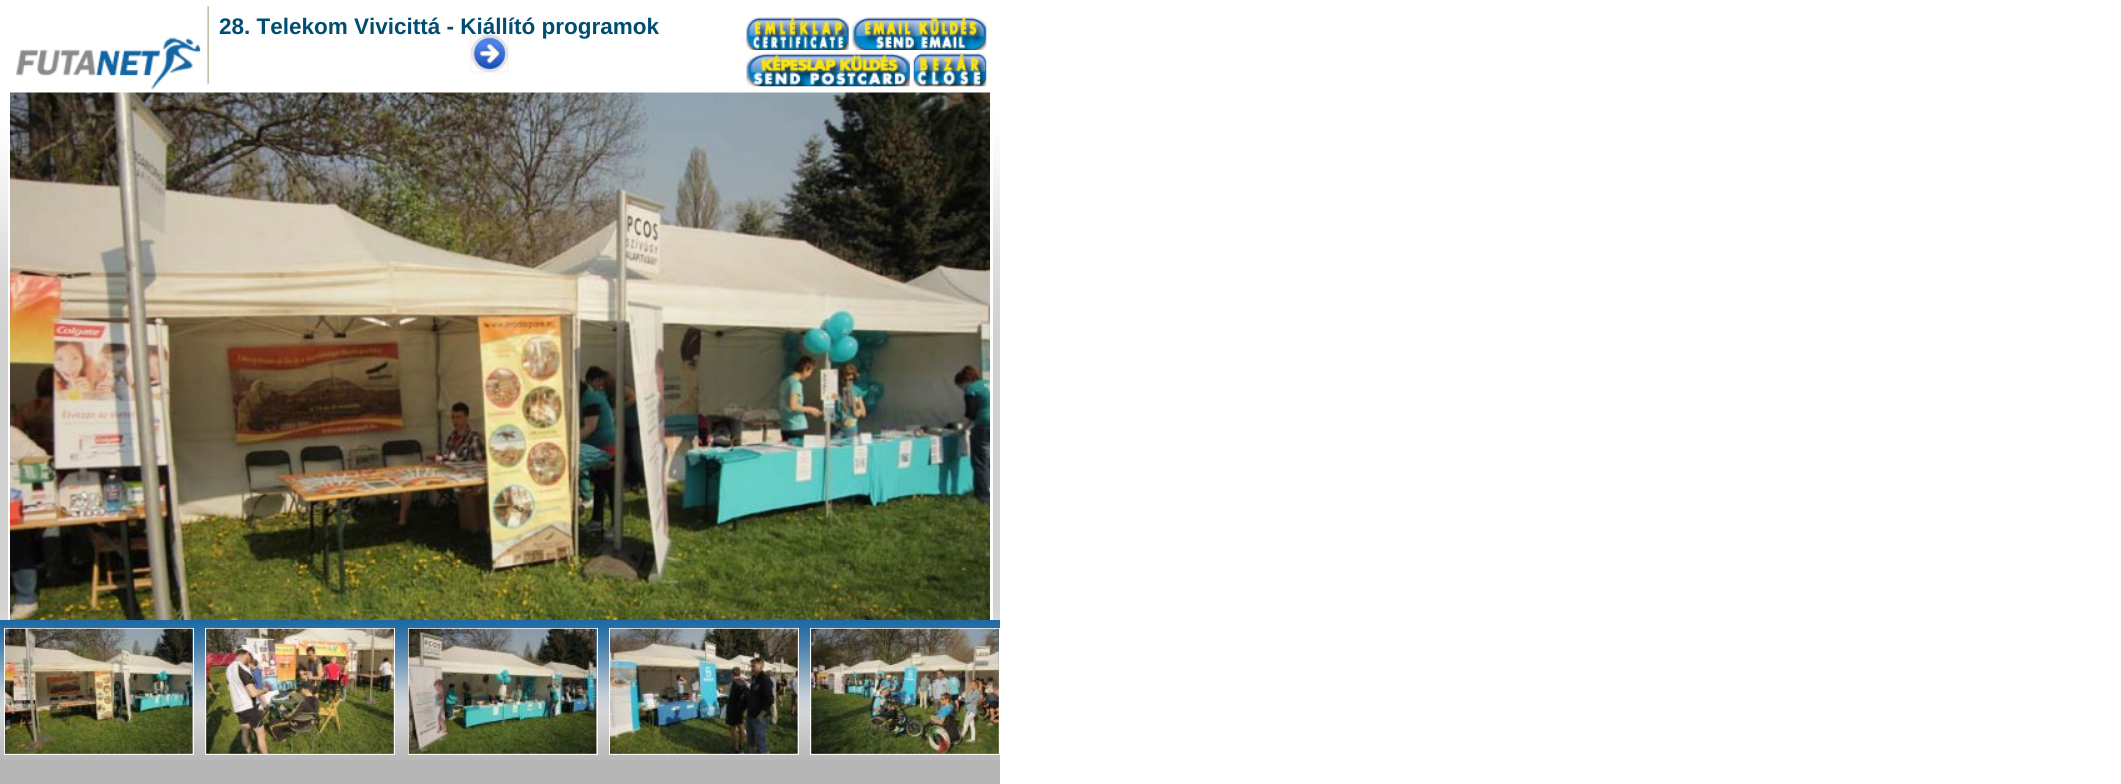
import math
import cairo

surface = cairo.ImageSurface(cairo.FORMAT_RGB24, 2121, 784)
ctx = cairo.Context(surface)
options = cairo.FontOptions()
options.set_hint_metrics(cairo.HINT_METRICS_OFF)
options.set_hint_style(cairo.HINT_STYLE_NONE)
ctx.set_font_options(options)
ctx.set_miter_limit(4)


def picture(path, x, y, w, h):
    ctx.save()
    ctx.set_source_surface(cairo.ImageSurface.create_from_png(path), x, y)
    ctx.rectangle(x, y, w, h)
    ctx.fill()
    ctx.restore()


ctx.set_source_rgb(1, 1, 1)
ctx.paint()
picture("img1.png", 16, 6, 193, 83)
ctx.select_font_face("Liberation Sans", cairo.FONT_SLANT_NORMAL, cairo.FONT_WEIGHT_BOLD)
ctx.set_font_size(22.5)
ctx.set_source_rgb(0.004, 0.302, 0.443)
ctx.move_to(219, 34)
ctx.show_text("28. Telekom Vivicittá - Kiállító programok")
picture("img2.png", 746, 17, 103, 33)
picture("img3.png", 852, 17, 135, 33)
picture("img4.png", 746, 53, 164, 34)
picture("img5.png", 913, 53, 74, 34)
picture("img6.png", 470, 35, 39, 38)
picture("img7.png", 0, 90, 1000, 530)
ctx.rectangle(9.5, 91.5, 982, 656)
ctx.set_source_rgb(1, 1, 1)
ctx.set_line_width(3)
ctx.stroke()
picture("img8.png", 10, 92, 980, 528)
ctx.set_source_rgb(0.706, 0.706, 0.706)
ctx.rectangle(0, 760, 1000, 24)
ctx.fill()
picture("img9.png", 0, 620, 1000, 140)
ctx.rectangle(4.5, 628.5, 189, 126)
ctx.set_source_rgb(0.98, 0.98, 0.98)
ctx.set_line_width(1)
ctx.stroke()
picture("img10.png", 5, 628, 188, 126)
ctx.rectangle(205.5, 628.5, 189, 126)
ctx.stroke()
picture("img11.png", 206, 628, 188, 126)
ctx.rectangle(408.5, 628.5, 189, 126)
ctx.stroke()
picture("img12.png", 408, 628, 189, 126)
ctx.rectangle(609.5, 628.5, 189, 126)
ctx.stroke()
picture("img13.png", 610, 628, 188, 126)
ctx.rectangle(810.5, 628.5, 189, 126)
ctx.stroke()
picture("img14.png", 811, 628, 188, 126)
surface.write_to_png("page.png")
